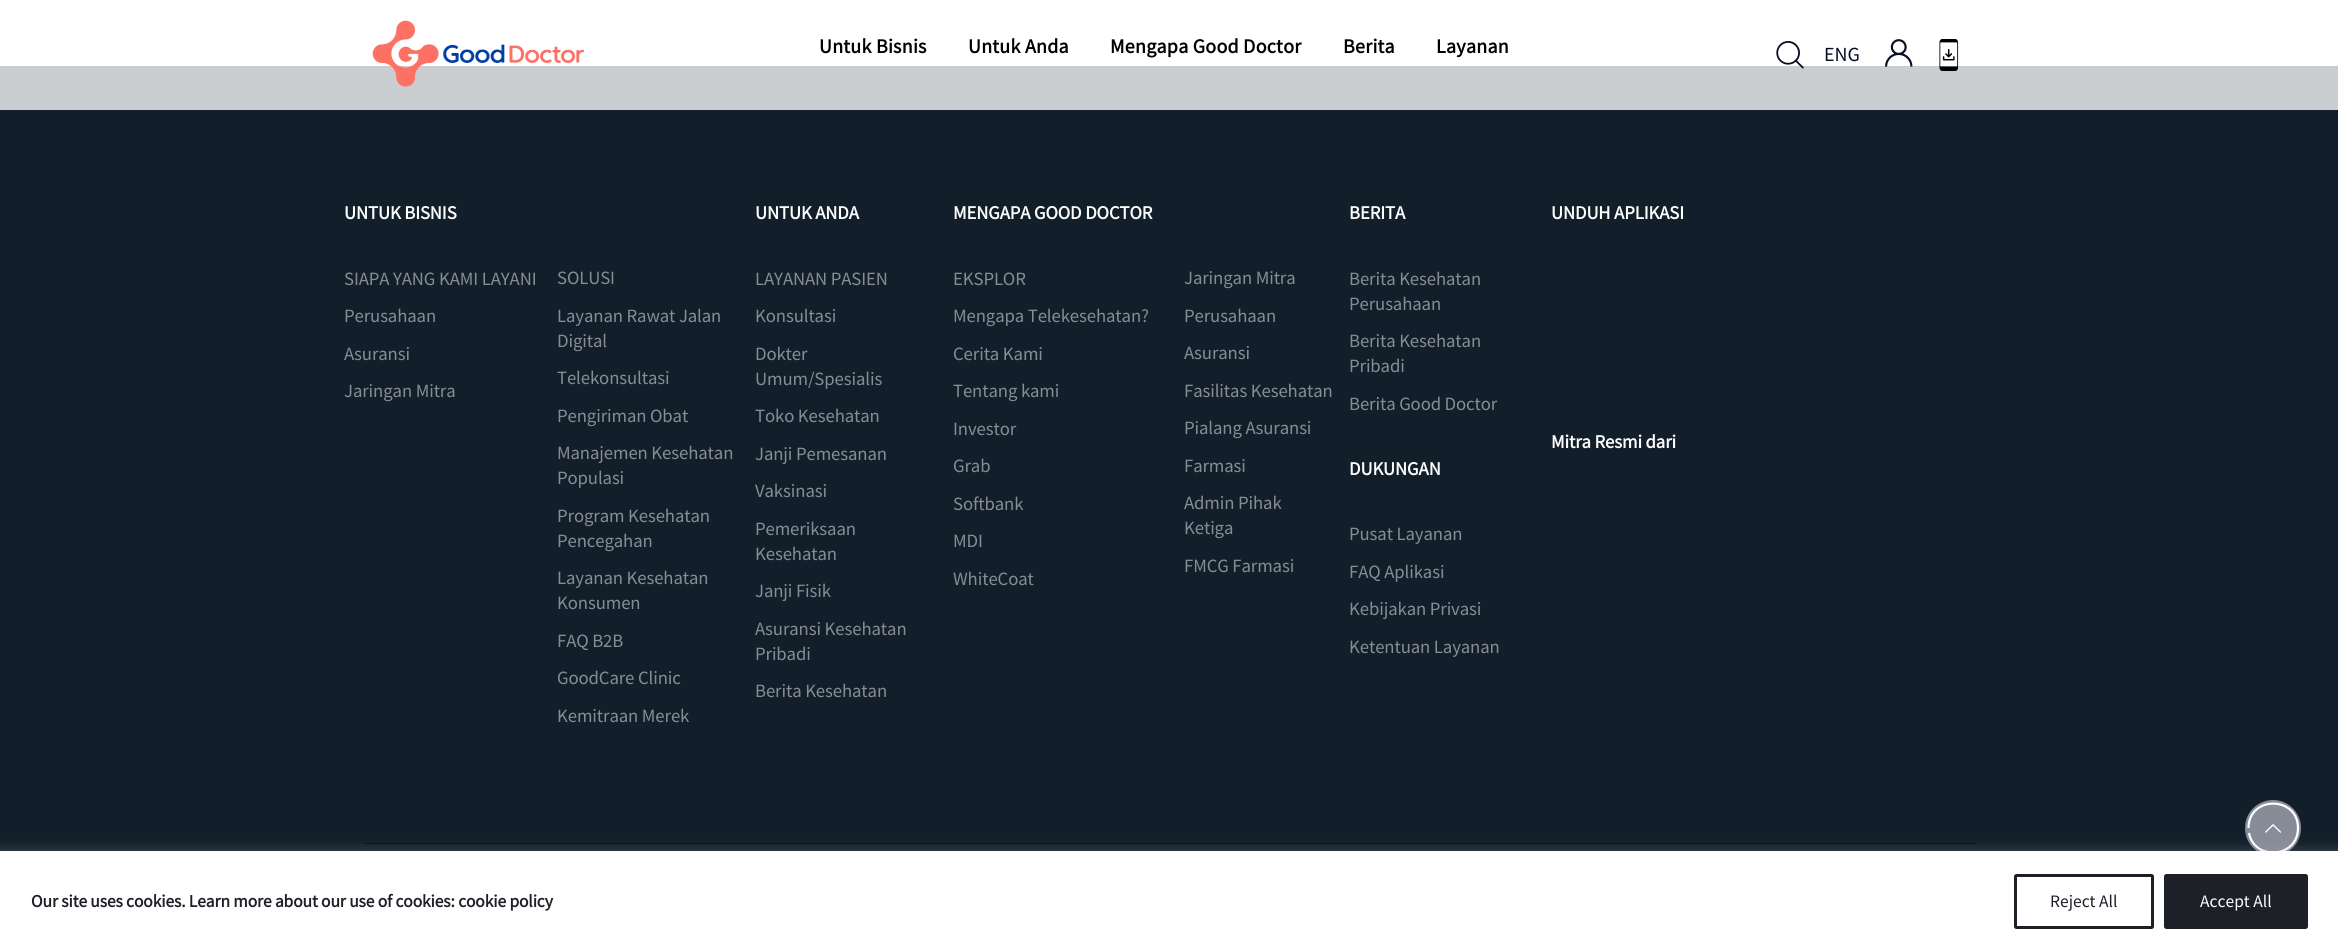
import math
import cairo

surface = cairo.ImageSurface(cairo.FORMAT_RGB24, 2338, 949)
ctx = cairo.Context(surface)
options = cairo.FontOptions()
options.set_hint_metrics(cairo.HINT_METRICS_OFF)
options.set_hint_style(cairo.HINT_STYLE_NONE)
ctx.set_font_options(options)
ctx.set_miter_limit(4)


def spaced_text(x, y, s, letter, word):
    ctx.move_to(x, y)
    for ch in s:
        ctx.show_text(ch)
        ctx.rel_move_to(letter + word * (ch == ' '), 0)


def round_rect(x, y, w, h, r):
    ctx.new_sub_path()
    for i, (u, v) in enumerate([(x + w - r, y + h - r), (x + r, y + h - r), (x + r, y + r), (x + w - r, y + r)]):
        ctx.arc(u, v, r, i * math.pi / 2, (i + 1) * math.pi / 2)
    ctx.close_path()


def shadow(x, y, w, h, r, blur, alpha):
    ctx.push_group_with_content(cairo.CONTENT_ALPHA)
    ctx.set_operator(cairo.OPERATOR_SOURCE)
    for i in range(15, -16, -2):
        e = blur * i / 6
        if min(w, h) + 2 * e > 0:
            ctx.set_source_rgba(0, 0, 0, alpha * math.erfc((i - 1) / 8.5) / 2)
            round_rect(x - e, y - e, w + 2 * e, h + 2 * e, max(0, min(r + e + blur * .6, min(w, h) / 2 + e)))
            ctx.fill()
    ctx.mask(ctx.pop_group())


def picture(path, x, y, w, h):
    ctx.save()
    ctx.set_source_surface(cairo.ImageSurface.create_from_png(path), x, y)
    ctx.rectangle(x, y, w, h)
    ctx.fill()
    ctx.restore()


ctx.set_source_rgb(1, 1, 1)
ctx.paint()
ctx.set_source_rgb(0.796, 0.808, 0.816)
ctx.rectangle(0, 66, 2338, 44)
ctx.fill()
ctx.set_source_rgb(0.792, 0.792, 0.792)
ctx.rectangle(364, 66, 1612, 1)
ctx.fill()
picture("img1.png", 372, 20, 213, 67)
ctx.select_font_face("Source Sans Pro", cairo.FONT_SLANT_NORMAL, cairo.FONT_WEIGHT_BOLD)
ctx.set_font_size(20)
ctx.set_source_rgb(0, 0, 0)
spaced_text(819, 53, "Untuk Bisnis", 0.25, 0)
spaced_text(968, 53, "Untuk Anda", 0.25, 0)
spaced_text(1110, 53, "Mengapa Good Doctor", 0.25, 0)
spaced_text(1343, 53, "Berita", 0.25, 0)
spaced_text(1436, 53, "Layanan", 0.25, 0)
picture("img2.png", 1776, 41, 28, 28)
ctx.select_font_face("Source Sans Pro")
ctx.set_source_rgb(0.031, 0.059, 0.141)
ctx.move_to(1824, 61)
ctx.show_text("ENG")
picture("img3.png", 1885, 39, 28, 28)
picture("img4.png", 1939, 39, 20, 32)
ctx.set_source_rgb(0.071, 0.118, 0.161)
ctx.rectangle(0, 110, 2338, 741)
ctx.fill()
ctx.select_font_face("Source Sans Pro", cairo.FONT_SLANT_NORMAL, cairo.FONT_WEIGHT_BOLD)
ctx.set_font_size(18.75)
ctx.set_source_rgb(0.988, 0.988, 0.988)
spaced_text(344, 219, "UNTUK BISNIS", -0.12, 0)
ctx.select_font_face("Source Sans Pro")
ctx.set_source_rgb(0.525, 0.549, 0.596)
spaced_text(344, 285, "SIAPA YANG KAMI LAYANI", -0.12, 0)
spaced_text(344, 322, "Perusahaan", -0.12, 0)
spaced_text(344, 360, "Asuransi", -0.12, 0)
spaced_text(344, 397, "Jaringan Mitra", -0.12, 0)
spaced_text(557, 284, "SOLUSI", -0.12, 0)
spaced_text(557, 322, "Layanan Rawat Jalan", -0.12, 0)
spaced_text(557, 347, "Digital", -0.12, 0)
spaced_text(557, 384, "Telekonsultasi", -0.12, 0)
spaced_text(557, 422, "Pengiriman Obat", -0.12, 0)
spaced_text(557, 459, "Manajemen Kesehatan", -0.12, 0)
spaced_text(557, 484, "Populasi", -0.12, 0)
spaced_text(557, 522, "Program Kesehatan", -0.12, 0)
spaced_text(557, 547, "Pencegahan", -0.12, 0)
spaced_text(557, 584, "Layanan Kesehatan", -0.12, 0)
spaced_text(557, 609, "Konsumen", -0.12, 0)
spaced_text(557, 647, "FAQ B2B", -0.12, 0)
spaced_text(557, 684, "GoodCare Clinic", -0.12, 0)
spaced_text(557, 722, "Kemitraan Merek", -0.12, 0)
ctx.select_font_face("Source Sans Pro", cairo.FONT_SLANT_NORMAL, cairo.FONT_WEIGHT_BOLD)
ctx.set_source_rgb(0.988, 0.988, 0.988)
spaced_text(755, 219, "UNTUK ANDA", -0.12, 0)
ctx.select_font_face("Source Sans Pro")
ctx.set_source_rgb(0.525, 0.549, 0.596)
spaced_text(755, 285, "LAYANAN PASIEN", -0.12, 0)
spaced_text(755, 322, "Konsultasi", -0.12, 0)
spaced_text(755, 360, "Dokter", -0.12, 0)
spaced_text(755, 385, "Umum/Spesialis", -0.12, 0)
spaced_text(755, 422, "Toko Kesehatan", -0.12, 0)
spaced_text(755, 460, "Janji Pemesanan", -0.12, 0)
spaced_text(755, 497, "Vaksinasi", -0.12, 0)
spaced_text(755, 535, "Pemeriksaan", -0.12, 0)
spaced_text(755, 560, "Kesehatan", -0.12, 0)
spaced_text(755, 597, "Janji Fisik", -0.12, 0)
spaced_text(755, 635, "Asuransi Kesehatan", -0.12, 0)
spaced_text(755, 660, "Pribadi", -0.12, 0)
spaced_text(755, 697, "Berita Kesehatan", -0.12, 0)
ctx.select_font_face("Source Sans Pro", cairo.FONT_SLANT_NORMAL, cairo.FONT_WEIGHT_BOLD)
ctx.set_source_rgb(0.988, 0.988, 0.988)
spaced_text(953, 219, "MENGAPA GOOD DOCTOR", -0.12, 0)
ctx.select_font_face("Source Sans Pro")
ctx.set_source_rgb(0.525, 0.549, 0.596)
spaced_text(953, 285, "EKSPLOR", -0.12, 0)
spaced_text(953, 322, "Mengapa Telekesehatan?", -0.12, 0)
spaced_text(953, 360, "Cerita Kami", -0.12, 0)
spaced_text(953, 397, "Tentang kami", -0.12, 0)
spaced_text(953, 435, "Investor", -0.12, 0)
spaced_text(953, 472, "Grab", -0.12, 0)
spaced_text(953, 510, "Softbank", -0.12, 0)
spaced_text(953, 547, "MDI", -0.12, 0)
spaced_text(953, 585, "WhiteCoat", -0.12, 0)
spaced_text(1184, 284, "Jaringan Mitra", -0.12, 0)
spaced_text(1184, 322, "Perusahaan", -0.12, 0)
spaced_text(1184, 359, "Asuransi", -0.12, 0)
spaced_text(1184, 397, "Fasilitas Kesehatan", -0.12, 0)
spaced_text(1184, 434, "Pialang Asuransi", -0.12, 0)
spaced_text(1184, 472, "Farmasi", -0.12, 0)
spaced_text(1184, 509, "Admin Pihak", -0.12, 0)
spaced_text(1184, 534, "Ketiga", -0.12, 0)
spaced_text(1184, 572, "FMCG Farmasi", -0.12, 0)
ctx.select_font_face("Source Sans Pro", cairo.FONT_SLANT_NORMAL, cairo.FONT_WEIGHT_BOLD)
ctx.set_source_rgb(0.988, 0.988, 0.988)
spaced_text(1349, 219, "BERITA", -0.12, 0)
ctx.select_font_face("Source Sans Pro")
ctx.set_source_rgb(0.525, 0.549, 0.596)
spaced_text(1349, 285, "Berita Kesehatan", -0.12, 0)
spaced_text(1349, 310, "Perusahaan", -0.12, 0)
spaced_text(1349, 347, "Berita Kesehatan", -0.12, 0)
spaced_text(1349, 372, "Pribadi", -0.12, 0)
spaced_text(1349, 410, "Berita Good Doctor", -0.12, 0)
ctx.select_font_face("Source Sans Pro", cairo.FONT_SLANT_NORMAL, cairo.FONT_WEIGHT_BOLD)
ctx.set_source_rgb(0.988, 0.988, 0.988)
spaced_text(1349, 475, "DUKUNGAN", -0.12, 0)
ctx.select_font_face("Source Sans Pro")
ctx.set_source_rgb(0.525, 0.549, 0.596)
spaced_text(1349, 540, "Pusat Layanan", -0.12, 0)
spaced_text(1349, 578, "FAQ Aplikasi", -0.12, 0)
spaced_text(1349, 615, "Kebijakan Privasi", -0.12, 0)
spaced_text(1349, 653, "Ketentuan Layanan", -0.12, 0)
ctx.select_font_face("Source Sans Pro", cairo.FONT_SLANT_NORMAL, cairo.FONT_WEIGHT_BOLD)
ctx.set_source_rgb(0.988, 0.988, 0.988)
spaced_text(1551, 219, "UNDUH APLIKASI", -0.12, 0)
spaced_text(1551, 448, "Mitra Resmi dari", -0.12, 0)
ctx.set_source_rgb(0.047, 0.051, 0.055)
ctx.rectangle(364, 843, 1612, 1)
ctx.fill()
ctx.set_source_rgb(0.525, 0.549, 0.596)
ctx.arc(2273, 828, 28, 0, 2 * math.pi)
ctx.fill()
ctx.new_path()
ctx.move_to(2248.5, 828)
ctx.curve_to(2248.5, 795.5, 2298, 795.5, 2298, 828)
ctx.curve_to(2298, 858, 2254.5, 861.5, 2249, 833)
ctx.set_source_rgb(1, 1, 1)
ctx.set_line_width(2.2)
ctx.stroke()
picture("img5.png", 2265, 824, 17, 9)
ctx.set_source_rgb(0.675, 0.671, 0.671)
shadow(0, 850, 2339, 99, 0, 6, 0.3)
ctx.set_source_rgb(1, 1, 1)
ctx.rectangle(0, 851, 2338, 98)
ctx.fill()
ctx.set_font_size(17.5)
ctx.set_source_rgb(0.114, 0.125, 0.153)
spaced_text(31, 907, "Our site uses cookies. Learn more about our use of cookies: cookie policy", -0.12, 0)
round_rect(2015.5, 875.5, 137, 52, 1)
ctx.set_line_width(3)
ctx.stroke()
ctx.select_font_face("Source Sans Pro")
ctx.move_to(2050, 907)
ctx.show_text("Reject All")
round_rect(2165.5, 875.5, 141, 52, 1)
ctx.fill_preserve()
ctx.stroke()
ctx.set_source_rgb(0.988, 0.988, 0.988)
ctx.move_to(2200, 907)
ctx.show_text("Accept All")
surface.write_to_png("page.png")
